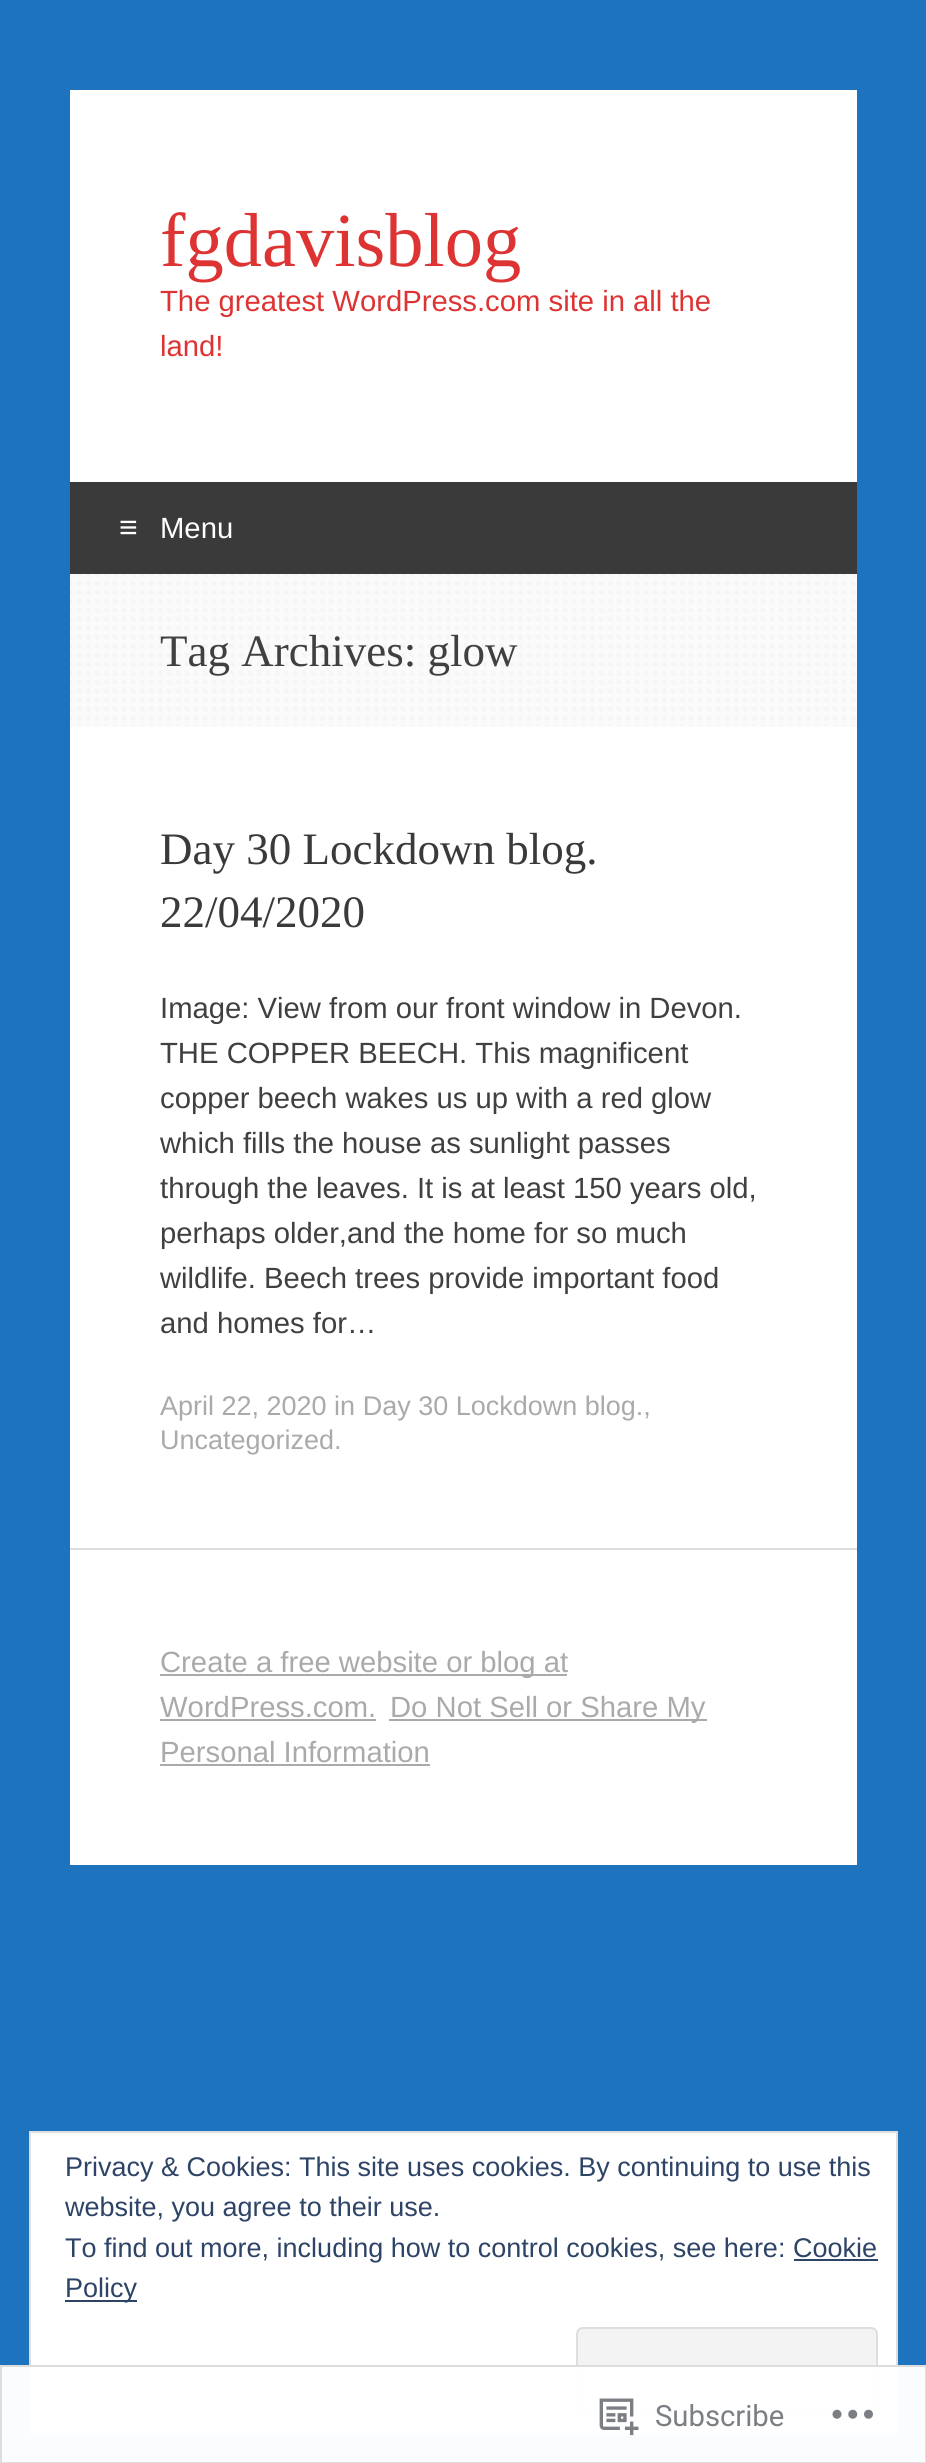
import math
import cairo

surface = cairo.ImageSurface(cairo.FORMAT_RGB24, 926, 2463)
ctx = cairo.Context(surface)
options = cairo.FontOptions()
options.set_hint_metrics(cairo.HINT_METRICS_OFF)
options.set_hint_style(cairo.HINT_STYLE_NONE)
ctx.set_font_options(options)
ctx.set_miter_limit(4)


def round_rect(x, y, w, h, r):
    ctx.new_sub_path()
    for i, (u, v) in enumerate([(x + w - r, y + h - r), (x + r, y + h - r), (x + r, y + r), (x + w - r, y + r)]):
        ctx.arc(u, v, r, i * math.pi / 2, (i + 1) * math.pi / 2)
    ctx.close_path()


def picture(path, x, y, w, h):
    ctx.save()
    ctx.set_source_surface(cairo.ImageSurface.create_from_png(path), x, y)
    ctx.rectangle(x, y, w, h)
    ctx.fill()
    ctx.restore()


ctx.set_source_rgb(0.118, 0.451, 0.745)
ctx.paint()
ctx.set_source_rgb(1, 1, 1)
ctx.rectangle(70, 90, 787, 1775)
ctx.fill()
ctx.select_font_face("Liberation Serif")
ctx.set_font_size(76.5)
ctx.set_source_rgb(0.867, 0.2, 0.2)
ctx.move_to(160, 266)
ctx.show_text("fgdavisblog")
ctx.select_font_face("Liberation Sans")
ctx.set_font_size(29.25)
ctx.move_to(160, 311)
ctx.show_text("The greatest WordPress.com site in all the")
ctx.move_to(160, 356)
ctx.show_text("land!")
ctx.set_source_rgb(0.227, 0.227, 0.227)
ctx.rectangle(70, 482, 787, 92)
ctx.fill()
ctx.set_font_size(32)
ctx.set_source_rgb(1, 1, 1)
ctx.move_to(119, 538)
ctx.show_text("≡")
ctx.set_font_size(29.25)
ctx.move_to(160, 538)
ctx.show_text("Menu")
picture("img1.png", 69, 573, 788, 154)
ctx.select_font_face("Liberation Serif")
ctx.set_font_size(45)
ctx.set_source_rgb(0.251, 0.251, 0.251)
ctx.move_to(160, 666)
ctx.show_text("Tag Archives: glow")
ctx.set_source_rgb(0.867, 0.867, 0.867)
ctx.rectangle(70, 1548, 787, 2)
ctx.fill()
ctx.set_source_rgb(0.227, 0.227, 0.227)
ctx.move_to(160, 864)
ctx.show_text("Day 30 Lockdown blog.")
ctx.move_to(160, 927)
ctx.show_text("22/04/2020")
ctx.select_font_face("Liberation Sans")
ctx.set_font_size(29.25)
ctx.set_source_rgb(0.251, 0.251, 0.251)
ctx.move_to(160, 1018)
ctx.show_text("Image: View from our front window in Devon.")
ctx.move_to(160, 1063)
ctx.show_text("THE COPPER BEECH. This magnificent")
ctx.move_to(160, 1108)
ctx.show_text("copper beech wakes us up with a red glow")
ctx.move_to(160, 1153)
ctx.show_text("which fills the house as sunlight passes")
ctx.move_to(160, 1198)
ctx.show_text("through the leaves. It is at least 150 years old,")
ctx.move_to(160, 1243)
ctx.show_text("perhaps older,and the home for so much")
ctx.move_to(160, 1288)
ctx.show_text("wildlife. Beech trees provide important food")
ctx.move_to(160, 1333)
ctx.show_text("and homes for…")
ctx.set_font_size(27)
ctx.set_source_rgb(0.667, 0.667, 0.667)
ctx.move_to(160, 1415)
ctx.show_text("April 22, 2020 in Day 30 Lockdown blog.,")
ctx.move_to(160, 1449)
ctx.show_text("Uncategorized.")
ctx.rectangle(160, 1674, 407, 2)
ctx.fill()
ctx.set_font_size(29.25)
ctx.move_to(160, 1672)
ctx.show_text("Create a free website or blog at")
ctx.move_to(160, 1717)
ctx.show_text("WordPress.com.")
ctx.rectangle(160, 1719, 216, 2)
ctx.fill()
ctx.rectangle(389, 1719, 318, 2)
ctx.fill()
ctx.move_to(390, 1717)
ctx.show_text("Do Not Sell or Share My")
ctx.move_to(160, 1762)
ctx.show_text("Personal Information")
ctx.rectangle(160, 1764, 270, 2)
ctx.fill()
ctx.set_source_rgb(1, 1, 1)
ctx.rectangle(30, 2132, 867, 302)
ctx.fill_preserve()
ctx.set_source_rgb(0.871, 0.871, 0.871)
ctx.stroke()
ctx.set_font_size(27)
ctx.set_source_rgb(0.18, 0.267, 0.404)
ctx.move_to(65, 2176)
ctx.show_text("Privacy & Cookies: This site uses cookies. By continuing to use this")
ctx.move_to(65, 2216)
ctx.show_text("website, you agree to their use.")
ctx.move_to(65, 2257)
ctx.show_text("To find out more, including how to control cookies, see here: Cookie")
ctx.rectangle(65, 2300, 72, 2)
ctx.fill()
ctx.move_to(65, 2297)
ctx.show_text("Policy")
ctx.rectangle(794, 2259, 84, 2)
ctx.fill()
ctx.set_source_rgb(0.953, 0.953, 0.953)
round_rect(577, 2328, 300, 85, 6)
ctx.fill_preserve()
ctx.set_source_rgb(0.871, 0.871, 0.871)
ctx.stroke()
ctx.set_source_rgba(1, 1, 1, 0.98)
ctx.rectangle(0, 2365, 926, 98)
ctx.fill()
ctx.rectangle(1, 2366, 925, 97)
ctx.set_source_rgba(0.863, 0.863, 0.871, 0.98)
ctx.stroke()
picture("img2.png", 599, 2398, 40, 38)
ctx.select_font_face("Roboto")
ctx.set_font_size(29.25)
ctx.set_source_rgb(0.482, 0.498, 0.518)
ctx.move_to(655, 2426)
ctx.show_text("Subscribe")
picture("img3.png", 832, 2409, 41, 10)
surface.write_to_png("page.png")
